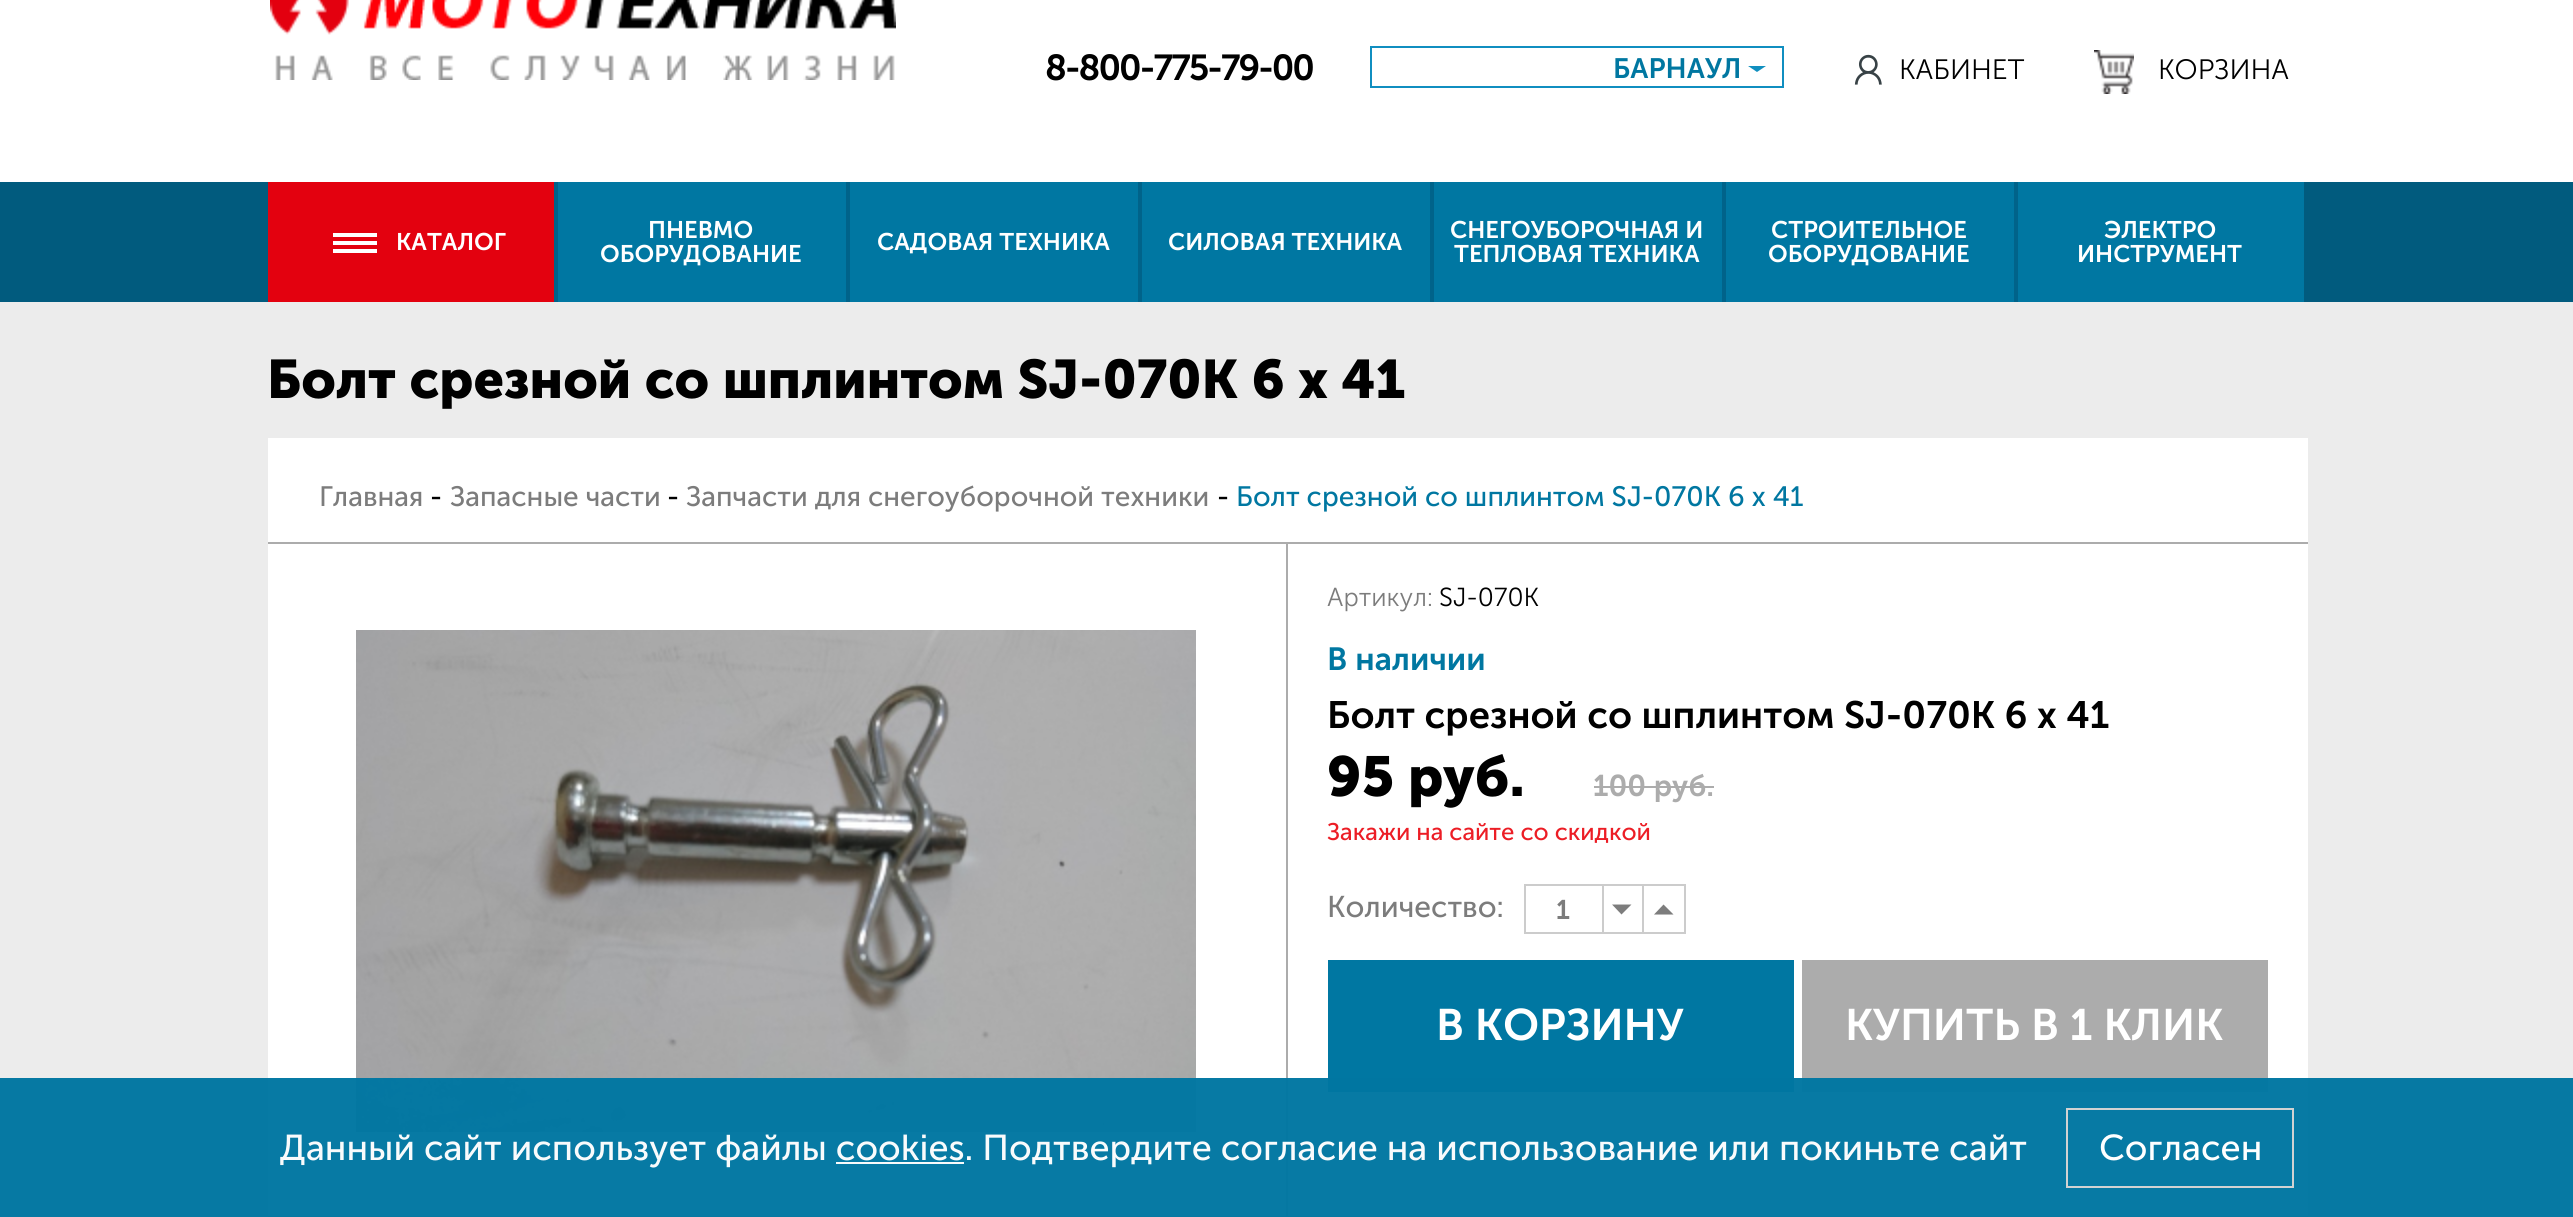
import math
import cairo

surface = cairo.ImageSurface(cairo.FORMAT_RGB24, 2573, 1217)
ctx = cairo.Context(surface)
options = cairo.FontOptions()
options.set_hint_metrics(cairo.HINT_METRICS_OFF)
options.set_hint_style(cairo.HINT_STYLE_NONE)
ctx.set_font_options(options)
ctx.set_miter_limit(4)


def spaced_text(x, y, s, letter, word):
    ctx.move_to(x, y)
    for ch in s:
        ctx.show_text(ch)
        ctx.rel_move_to(letter + word * (ch == ' '), 0)


def picture(path, x, y, w, h):
    ctx.save()
    ctx.set_source_surface(cairo.ImageSurface.create_from_png(path), x, y)
    ctx.rectangle(x, y, w, h)
    ctx.fill()
    ctx.restore()


ctx.set_source_rgb(0.922, 0.922, 0.922)
ctx.paint()
ctx.set_source_rgb(1, 1, 1)
ctx.rectangle(0, 0, 2573, 182)
ctx.fill()
picture("img1.png", 270, 0, 626, 80)
ctx.select_font_face("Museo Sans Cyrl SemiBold")
ctx.set_font_size(36)
ctx.set_source_rgb(0, 0, 0)
spaced_text(1045, 80, "8-800-775-79-00", -2, 0)
ctx.rectangle(1371, 47, 412, 40)
ctx.set_source_rgb(0.063, 0.557, 0.753)
ctx.stroke()
ctx.set_source_rgb(0.063, 0.561, 0.749)
ctx.set_fill_rule(cairo.FILL_RULE_EVEN_ODD)
ctx.new_path()
ctx.move_to(1748, 66)
ctx.line_to(1766, 66)
ctx.line_to(1757, 72)
ctx.close_path()
ctx.fill()
ctx.set_font_size(28)
ctx.set_source_rgb(0, 0.467, 0.631)
ctx.move_to(1613, 78)
ctx.show_text("БАРНАУЛ")
picture("img2.png", 1854, 54, 28, 31)
ctx.select_font_face("Museo Sans Cyrl Light")
ctx.set_source_rgb(0, 0, 0)
ctx.move_to(1899, 79)
ctx.show_text("КАБИНЕТ")
picture("img3.png", 2094, 50, 40, 44)
ctx.move_to(2158, 79)
ctx.show_text("КОРЗИНА")
ctx.set_source_rgb(0.004, 0.357, 0.494)
ctx.rectangle(0, 182, 2573, 120)
ctx.fill()
ctx.set_source_rgb(0.89, 0.004, 0.059)
ctx.rectangle(268, 182, 286, 120)
ctx.fill()
ctx.set_source_rgb(1, 1, 1)
ctx.set_fill_rule(cairo.FILL_RULE_WINDING)
ctx.new_path()
ctx.move_to(333, 253)
ctx.line_to(333, 249)
ctx.line_to(377, 249)
ctx.line_to(377, 253)
ctx.close_path()
ctx.move_to(333, 241)
ctx.line_to(377, 241)
ctx.line_to(377, 245)
ctx.line_to(333, 245)
ctx.close_path()
ctx.move_to(333, 233)
ctx.line_to(377, 233)
ctx.line_to(377, 237)
ctx.line_to(333, 237)
ctx.close_path()
ctx.fill()
ctx.select_font_face("Museo Sans Cyrl SemiBold")
ctx.set_font_size(24)
ctx.move_to(396, 250)
ctx.show_text("КАТАЛОГ")
ctx.set_source_rgb(0, 0.388, 0.541)
ctx.rectangle(554, 182, 4, 120)
ctx.fill()
ctx.set_source_rgb(0, 0.467, 0.635)
ctx.rectangle(558, 182, 288, 120)
ctx.fill()
ctx.set_source_rgb(1, 1, 1)
ctx.move_to(648, 238)
ctx.show_text("ПНЕВМО")
ctx.move_to(600, 262)
ctx.show_text("ОБОРУДОВАНИЕ")
ctx.set_source_rgb(0, 0.388, 0.541)
ctx.rectangle(846, 182, 4, 120)
ctx.fill()
ctx.set_source_rgb(0, 0.467, 0.635)
ctx.rectangle(850, 182, 288, 120)
ctx.fill()
ctx.set_source_rgb(1, 1, 1)
ctx.move_to(877, 250)
ctx.show_text("САДОВАЯ ТЕХНИКА")
ctx.set_source_rgb(0, 0.388, 0.541)
ctx.rectangle(1138, 182, 4, 120)
ctx.fill()
ctx.set_source_rgb(0, 0.467, 0.635)
ctx.rectangle(1142, 182, 288, 120)
ctx.fill()
ctx.set_source_rgb(1, 1, 1)
ctx.move_to(1168, 250)
ctx.show_text("СИЛОВАЯ ТЕХНИКА")
ctx.set_source_rgb(0, 0.388, 0.541)
ctx.rectangle(1430, 182, 4, 120)
ctx.fill()
ctx.set_source_rgb(0, 0.467, 0.635)
ctx.rectangle(1434, 182, 288, 120)
ctx.fill()
ctx.set_source_rgb(1, 1, 1)
ctx.move_to(1450, 238)
ctx.show_text("СНЕГОУБОРОЧНАЯ И")
ctx.move_to(1454, 262)
ctx.show_text("ТЕПЛОВАЯ ТЕХНИКА")
ctx.set_source_rgb(0, 0.388, 0.541)
ctx.rectangle(1722, 182, 4, 120)
ctx.fill()
ctx.set_source_rgb(0, 0.467, 0.635)
ctx.rectangle(1726, 182, 288, 120)
ctx.fill()
ctx.set_source_rgb(1, 1, 1)
ctx.move_to(1771, 238)
ctx.show_text("СТРОИТЕЛЬНОЕ")
ctx.move_to(1768, 262)
ctx.show_text("ОБОРУДОВАНИЕ")
ctx.set_source_rgb(0, 0.388, 0.541)
ctx.rectangle(2014, 182, 4, 120)
ctx.fill()
ctx.set_source_rgb(0, 0.467, 0.635)
ctx.rectangle(2018, 182, 286, 120)
ctx.fill()
ctx.set_source_rgb(1, 1, 1)
ctx.move_to(2104, 238)
ctx.show_text("ЭЛЕКТРО")
ctx.move_to(2077, 262)
ctx.show_text("ИНСТРУМЕНТ")
ctx.select_font_face("Museo Sans Cyrl", cairo.FONT_SLANT_NORMAL, cairo.FONT_WEIGHT_BOLD)
ctx.set_font_size(54)
ctx.set_source_rgb(0, 0, 0)
ctx.move_to(267, 398)
ctx.show_text("Болт срезной со шплинтом SJ-070K 6 x 41")
ctx.set_source_rgb(1, 1, 1)
ctx.rectangle(268, 438, 2040, 778)
ctx.fill()
ctx.set_source_rgb(0.675, 0.675, 0.675)
ctx.rectangle(268, 542, 2040, 2)
ctx.fill()
ctx.select_font_face("Museo Sans Cyrl")
ctx.set_font_size(28)
ctx.set_source_rgb(0.486, 0.486, 0.486)
ctx.move_to(319, 506)
ctx.show_text("Главная")
ctx.set_source_rgb(0, 0, 0)
ctx.move_to(430, 506)
ctx.show_text("-")
ctx.set_source_rgb(0.486, 0.486, 0.486)
ctx.move_to(450, 506)
ctx.show_text("Запасные части")
ctx.set_source_rgb(0, 0, 0)
ctx.move_to(667, 506)
ctx.show_text("-")
ctx.set_source_rgb(0.486, 0.486, 0.486)
ctx.move_to(686, 506)
ctx.show_text("Запчасти для снегоуборочной техники")
ctx.set_source_rgb(0, 0, 0)
ctx.move_to(1217, 506)
ctx.show_text("-")
ctx.set_source_rgb(0, 0.467, 0.631)
ctx.move_to(1236, 506)
ctx.show_text("Болт срезной со шплинтом SJ-070K 6 x 41")
ctx.set_source_rgb(0.675, 0.675, 0.675)
ctx.rectangle(268, 1216, 2040, 1)
ctx.fill()
ctx.rectangle(1286, 544, 2, 672)
ctx.fill()
picture("img4.png", 356, 630, 840, 502)
ctx.select_font_face("Museo Sans Cyrl Light")
ctx.set_font_size(26)
ctx.set_source_rgb(0.486, 0.486, 0.486)
ctx.move_to(1327, 606)
ctx.show_text("Артикул:")
ctx.set_source_rgb(0, 0, 0)
ctx.move_to(1439, 606)
ctx.show_text("SJ-070K")
ctx.select_font_face("Museo Sans Cyrl SemiBold")
ctx.set_font_size(32)
ctx.set_source_rgb(0, 0.467, 0.631)
ctx.move_to(1327, 670)
ctx.show_text("В наличии")
ctx.set_font_size(38)
ctx.set_source_rgb(0, 0, 0)
ctx.move_to(1327, 728)
ctx.show_text("Болт срезной со шплинтом SJ-070K 6 x 41")
ctx.select_font_face("Museo Sans Cyrl", cairo.FONT_SLANT_NORMAL, cairo.FONT_WEIGHT_BOLD)
ctx.set_font_size(56)
ctx.move_to(1327, 796)
ctx.show_text("95 руб.")
ctx.select_font_face("Museo Sans Cyrl SemiBold")
ctx.set_font_size(30)
ctx.set_source_rgb(0.675, 0.675, 0.675)
ctx.move_to(1593, 796)
ctx.show_text("100 руб.")
ctx.rectangle(1594, 786, 120, 2)
ctx.fill()
ctx.select_font_face("Museo Sans Cyrl")
ctx.set_font_size(24)
ctx.set_source_rgb(0.925, 0.114, 0.145)
ctx.move_to(1327, 840)
ctx.show_text("Закажи на сайте со скидкой")
ctx.set_font_size(30)
ctx.set_source_rgb(0.486, 0.486, 0.486)
ctx.move_to(1327, 917)
ctx.show_text("Количество:")
ctx.rectangle(1525, 885, 78, 48)
ctx.set_source_rgb(0.8, 0.8, 0.8)
ctx.stroke()
ctx.rectangle(1602, 884, 84, 2)
ctx.fill()
ctx.rectangle(1642, 884, 2, 50)
ctx.fill()
ctx.rectangle(1602, 932, 42, 2)
ctx.fill()
ctx.set_source_rgb(0.49, 0.49, 0.49)
ctx.set_fill_rule(cairo.FILL_RULE_EVEN_ODD)
ctx.new_path()
ctx.move_to(1612, 904.5)
ctx.line_to(1631.5, 904.5)
ctx.line_to(1621.5, 914.5)
ctx.close_path()
ctx.fill()
ctx.select_font_face("Museo Sans Cyrl SemiBold")
ctx.set_font_size(27)
ctx.set_source_rgb(0.486, 0.486, 0.486)
ctx.move_to(1556, 919)
ctx.show_text("1")
ctx.set_source_rgb(0.8, 0.8, 0.8)
ctx.rectangle(1684, 884, 2, 50)
ctx.fill()
ctx.rectangle(1644, 932, 42, 2)
ctx.fill()
ctx.set_source_rgb(0.49, 0.49, 0.49)
ctx.new_path()
ctx.move_to(1673.5, 914.5)
ctx.line_to(1654, 914.5)
ctx.line_to(1663.5, 904.5)
ctx.close_path()
ctx.fill()
ctx.set_source_rgb(0, 0.467, 0.635)
ctx.rectangle(1328, 960, 466, 132)
ctx.fill()
ctx.set_font_size(44)
ctx.set_source_rgb(1, 1, 1)
ctx.move_to(1436, 1040)
ctx.show_text("В КОРЗИНУ")
ctx.set_source_rgb(0.675, 0.675, 0.675)
ctx.rectangle(1802, 960, 466, 132)
ctx.fill()
ctx.set_source_rgb(1, 1, 1)
ctx.move_to(1845, 1040)
ctx.show_text("КУПИТЬ В 1 КЛИК")
ctx.set_source_rgba(0, 0.467, 0.635, 0.97)
ctx.rectangle(0, 1078, 2573, 139)
ctx.fill()
ctx.select_font_face("Museo Sans Cyrl")
ctx.set_font_size(36)
ctx.set_source_rgb(0.973, 0.984, 0.988)
ctx.move_to(280, 1160)
ctx.show_text("Данный сайт использует файлы cookies. Подтвердите согласие на использование или покиньте сайт")
ctx.rectangle(836, 1162, 128, 2)
ctx.fill()
ctx.rectangle(2067, 1109, 226, 78)
ctx.set_source_rgb(0.824, 0.824, 0.824)
ctx.stroke()
ctx.set_source_rgb(1, 1, 1)
ctx.move_to(2099, 1160)
ctx.show_text("Согласен")
surface.write_to_png("page.png")
